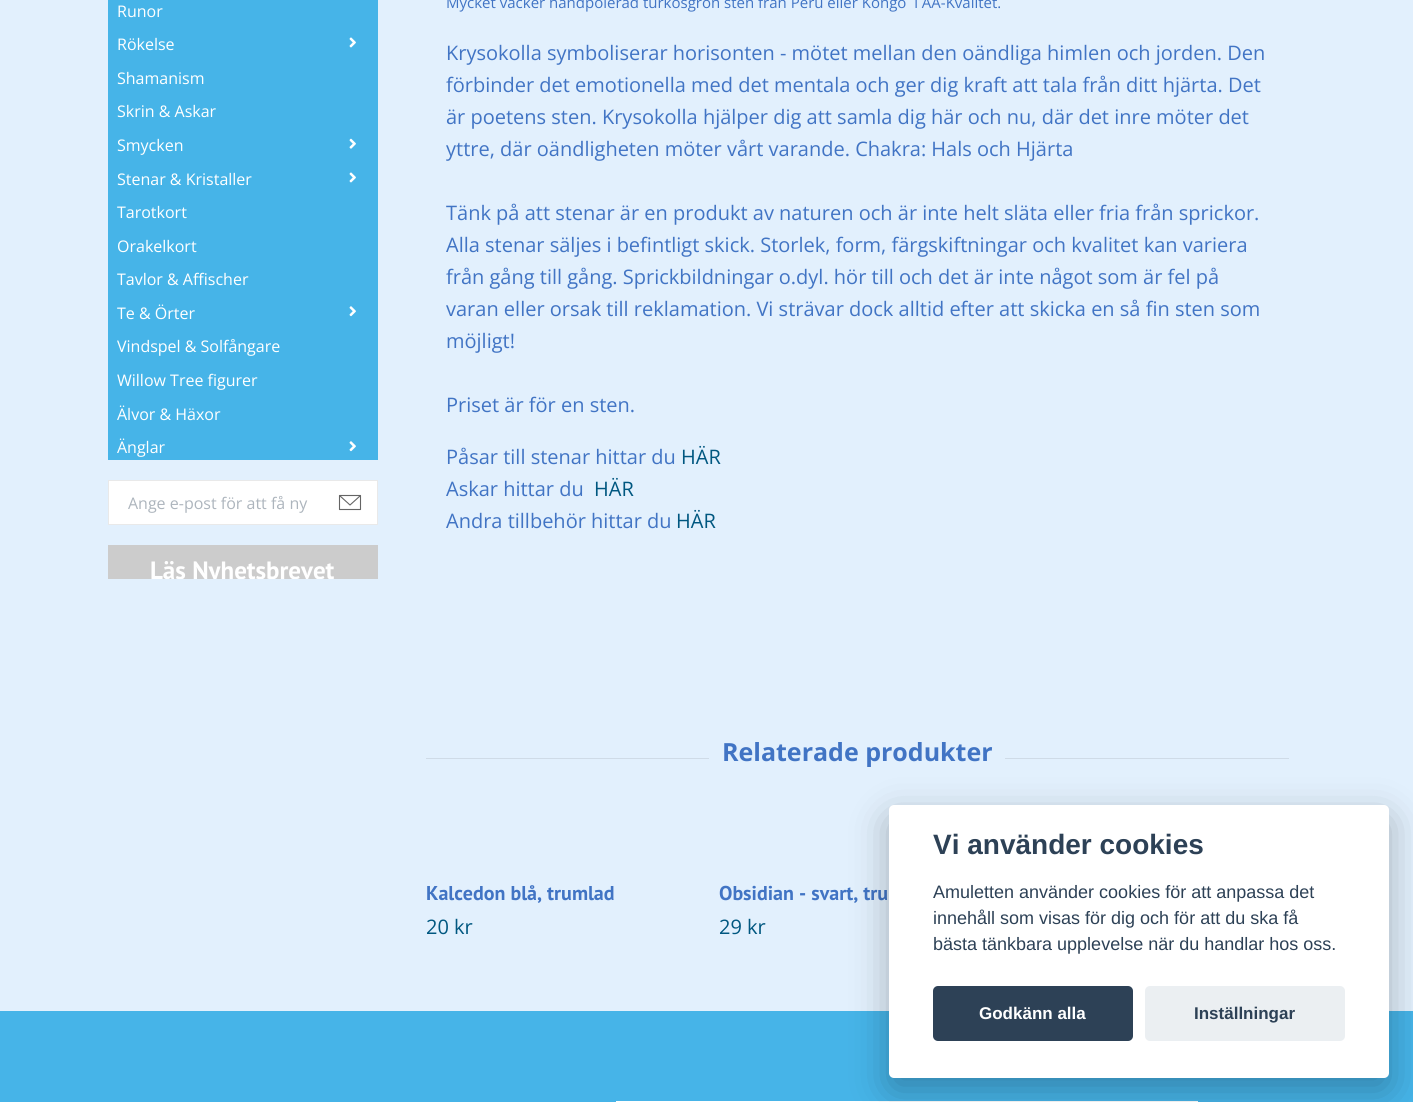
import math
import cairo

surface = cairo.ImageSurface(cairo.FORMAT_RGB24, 1413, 1102)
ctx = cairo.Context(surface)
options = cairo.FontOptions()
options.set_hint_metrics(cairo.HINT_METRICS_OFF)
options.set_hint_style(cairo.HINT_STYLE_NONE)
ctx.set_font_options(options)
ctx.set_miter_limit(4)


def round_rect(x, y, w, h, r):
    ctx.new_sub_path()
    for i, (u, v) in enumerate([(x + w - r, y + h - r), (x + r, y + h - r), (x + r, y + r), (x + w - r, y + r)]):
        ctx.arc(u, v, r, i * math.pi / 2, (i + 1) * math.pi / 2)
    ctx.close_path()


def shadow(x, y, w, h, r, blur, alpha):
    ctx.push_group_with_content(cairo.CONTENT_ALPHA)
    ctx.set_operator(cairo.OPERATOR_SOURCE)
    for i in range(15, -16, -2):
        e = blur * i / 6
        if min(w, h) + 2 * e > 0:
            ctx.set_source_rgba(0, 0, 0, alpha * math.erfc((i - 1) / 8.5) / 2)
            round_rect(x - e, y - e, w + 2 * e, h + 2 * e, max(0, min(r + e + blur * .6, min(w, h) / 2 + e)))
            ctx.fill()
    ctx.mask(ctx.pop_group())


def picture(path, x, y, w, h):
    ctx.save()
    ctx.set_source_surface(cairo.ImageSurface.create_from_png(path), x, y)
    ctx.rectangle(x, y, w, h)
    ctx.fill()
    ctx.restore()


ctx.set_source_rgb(0.886, 0.941, 0.992)
ctx.paint()
ctx.set_source_rgb(0.275, 0.706, 0.91)
ctx.rectangle(108, 0, 270, 460)
ctx.fill()
ctx.select_font_face("Open Sans")
ctx.set_font_size(16)
ctx.set_source_rgb(1, 1, 1)
ctx.move_to(117, 17)
ctx.show_text("Runor")
ctx.move_to(117, 50)
ctx.show_text("Rökelse")
picture("img1.png", 349, 37, 7, 11)
ctx.move_to(117, 84)
ctx.show_text("Shamanism")
ctx.move_to(117, 117)
ctx.show_text("Skrin & Askar")
ctx.move_to(117, 151)
ctx.show_text("Smycken")
picture("img2.png", 349, 138, 7, 11)
ctx.move_to(117, 185)
ctx.show_text("Stenar & Kristaller")
picture("img1.png", 349, 172, 7, 11)
ctx.move_to(117, 218)
ctx.show_text("Tarotkort")
ctx.move_to(117, 252)
ctx.show_text("Orakelkort")
ctx.move_to(117, 285)
ctx.show_text("Tavlor & Affischer")
ctx.move_to(117, 319)
ctx.show_text("Te & Örter")
picture("img3.png", 349, 306, 7, 11)
ctx.move_to(117, 352)
ctx.show_text("Vindspel & Solfångare")
ctx.move_to(117, 386)
ctx.show_text("Willow Tree figurer")
ctx.move_to(117, 420)
ctx.show_text("Älvor & Häxor")
ctx.move_to(117, 453)
ctx.show_text("Änglar")
picture("img3.png", 349, 441, 7, 11)
ctx.rectangle(108.5, 480.5, 269, 44)
ctx.fill_preserve()
ctx.set_source_rgb(0.914, 0.914, 0.914)
ctx.set_line_width(1)
ctx.stroke()
ctx.set_source_rgb(0.678, 0.71, 0.741)
ctx.move_to(128, 509)
ctx.show_text("Ange e-post för att få ny")
ctx.new_path()
ctx.move_to(339.5, 495.5)
ctx.line_to(350, 505)
ctx.line_to(360.5, 495.5)
ctx.move_to(339.5, 495.5)
ctx.line_to(360.5, 495.5)
ctx.line_to(360.5, 509.5)
ctx.line_to(339.5, 509.5)
ctx.close_path()
ctx.set_source_rgb(0.392, 0.392, 0.392)
ctx.set_line_width(1.1)
ctx.set_line_cap(cairo.LINE_CAP_ROUND)
ctx.set_line_join(cairo.LINE_JOIN_ROUND)
ctx.stroke()
ctx.set_source_rgb(0.8, 0.8, 0.8)
ctx.rectangle(108, 545, 270, 34)
ctx.fill()
ctx.save()
ctx.rectangle(108, 545, 270, 34)
ctx.clip()
ctx.select_font_face("PT Sans", cairo.FONT_SLANT_NORMAL, cairo.FONT_WEIGHT_BOLD)
ctx.set_font_size(25)
ctx.set_source_rgb(1, 1, 1)
ctx.move_to(150, 579)
ctx.show_text("Läs Nyhetsbrevet")
ctx.restore()
ctx.set_font_size(15)
ctx.set_source_rgb(0.255, 0.455, 0.769)
ctx.move_to(446, 8)
ctx.show_text("Mycket vacker handpolerad turkosgrön sten från Peru eller Kongo  i AA-Kvalitet.")
ctx.set_font_size(20)
ctx.move_to(446, 60)
ctx.show_text("Krysokolla symboliserar horisonten - mötet mellan den oändliga himlen och jorden. Den")
ctx.move_to(446, 92)
ctx.show_text("förbinder det emotionella med det mentala och ger dig kraft att tala från ditt hjärta. Det")
ctx.move_to(446, 124)
ctx.show_text("är poetens sten. Krysokolla hjälper dig att samla dig här och nu, där det inre möter det")
ctx.move_to(446, 156)
ctx.show_text("yttre, där oändligheten möter vårt varande. Chakra: Hals och Hjärta")
ctx.move_to(446, 220)
ctx.show_text("Tänk på att stenar är en produkt av naturen och är inte helt släta eller fria från sprickor.")
ctx.move_to(446, 252)
ctx.show_text("Alla stenar säljes i befintligt skick. Storlek, form, färgskiftningar och kvalitet kan variera")
ctx.move_to(446, 284)
ctx.show_text("från gång till gång. Sprickbildningar o.dyl. hör till och det är inte något som är fel på")
ctx.move_to(446, 316)
ctx.show_text("varan eller orsak till reklamation. Vi strävar dock alltid efter att skicka en så fin sten som")
ctx.move_to(446, 348)
ctx.show_text("möjligt!")
ctx.move_to(446, 412)
ctx.show_text("Priset är för en sten.")
ctx.move_to(446, 464)
ctx.show_text("Påsar till stenar hittar du")
ctx.set_source_rgb(0, 0.341, 0.502)
ctx.move_to(681, 464)
ctx.show_text("HÄR")
ctx.set_source_rgb(0.255, 0.455, 0.769)
ctx.move_to(446, 496)
ctx.show_text("Askar hittar du")
ctx.set_source_rgb(0, 0.341, 0.502)
ctx.move_to(594, 496)
ctx.show_text("HÄR")
ctx.set_source_rgb(0.255, 0.455, 0.769)
ctx.move_to(446, 528)
ctx.show_text("Andra tillbehör hittar du")
ctx.set_source_rgb(0, 0.341, 0.502)
ctx.move_to(676, 528)
ctx.show_text("HÄR")
ctx.set_source_rgb(0.812, 0.859, 0.906)
ctx.rectangle(426, 758, 863, 1)
ctx.fill()
ctx.set_source_rgb(0.886, 0.941, 0.992)
ctx.rectangle(709, 758, 296, 1)
ctx.fill()
ctx.select_font_face("Open Sans", cairo.FONT_SLANT_NORMAL, cairo.FONT_WEIGHT_BOLD)
ctx.set_font_size(25)
ctx.set_source_rgb(0.255, 0.455, 0.769)
ctx.move_to(722, 761)
ctx.show_text("Relaterade produkter")
ctx.select_font_face("PT Sans", cairo.FONT_SLANT_NORMAL, cairo.FONT_WEIGHT_BOLD)
ctx.set_font_size(20)
ctx.move_to(426, 900)
ctx.show_text("Kalcedon blå, trumlad")
ctx.select_font_face("Open Sans")
ctx.set_source_rgb(0, 0.341, 0.502)
ctx.move_to(426, 934)
ctx.show_text("20 kr")
ctx.select_font_face("PT Sans", cairo.FONT_SLANT_NORMAL, cairo.FONT_WEIGHT_BOLD)
ctx.set_source_rgb(0.255, 0.455, 0.769)
ctx.move_to(719, 900)
ctx.show_text("Obsidian - svart, tru")
ctx.select_font_face("Open Sans")
ctx.set_source_rgb(0, 0.341, 0.502)
ctx.move_to(719, 934)
ctx.show_text("29 kr")
ctx.set_source_rgb(0.275, 0.706, 0.91)
ctx.rectangle(0, 1011, 1413, 91)
ctx.fill()
ctx.set_source_rgb(1, 1, 1)
ctx.rectangle(616, 1101, 582, 1)
ctx.fill()
ctx.set_source_rgb(0.008, 0.008, 0.012)
shadow(889, 818, 500, 272, 5, 19, 0.28)
ctx.set_source_rgb(1, 1, 1)
round_rect(889, 805, 500, 273, 5)
ctx.fill()
ctx.select_font_face("Liberation Sans", cairo.FONT_SLANT_NORMAL, cairo.FONT_WEIGHT_BOLD)
ctx.set_font_size(28)
ctx.set_source_rgb(0.176, 0.255, 0.337)
ctx.move_to(933, 854)
ctx.show_text("Vi använder cookies")
ctx.select_font_face("Liberation Sans")
ctx.set_font_size(18)
ctx.move_to(933, 898)
ctx.show_text("Amuletten använder cookies för att anpassa det")
ctx.move_to(933, 924)
ctx.show_text("innehåll som visas för dig och för att du ska få")
ctx.move_to(933, 950)
ctx.show_text("bästa tänkbara upplevelse när du handlar hos oss.")
round_rect(933, 986, 200, 55, 5)
ctx.fill()
ctx.select_font_face("Liberation Sans", cairo.FONT_SLANT_NORMAL, cairo.FONT_WEIGHT_BOLD)
ctx.set_font_size(17)
ctx.set_source_rgb(1, 1, 1)
ctx.move_to(979, 1019)
ctx.show_text("Godkänn alla")
ctx.set_source_rgb(0.918, 0.937, 0.949)
round_rect(1145, 986, 200, 55, 5)
ctx.fill()
ctx.set_source_rgb(0.176, 0.255, 0.337)
ctx.move_to(1194, 1019)
ctx.show_text("Inställningar")
surface.write_to_png("page.png")
